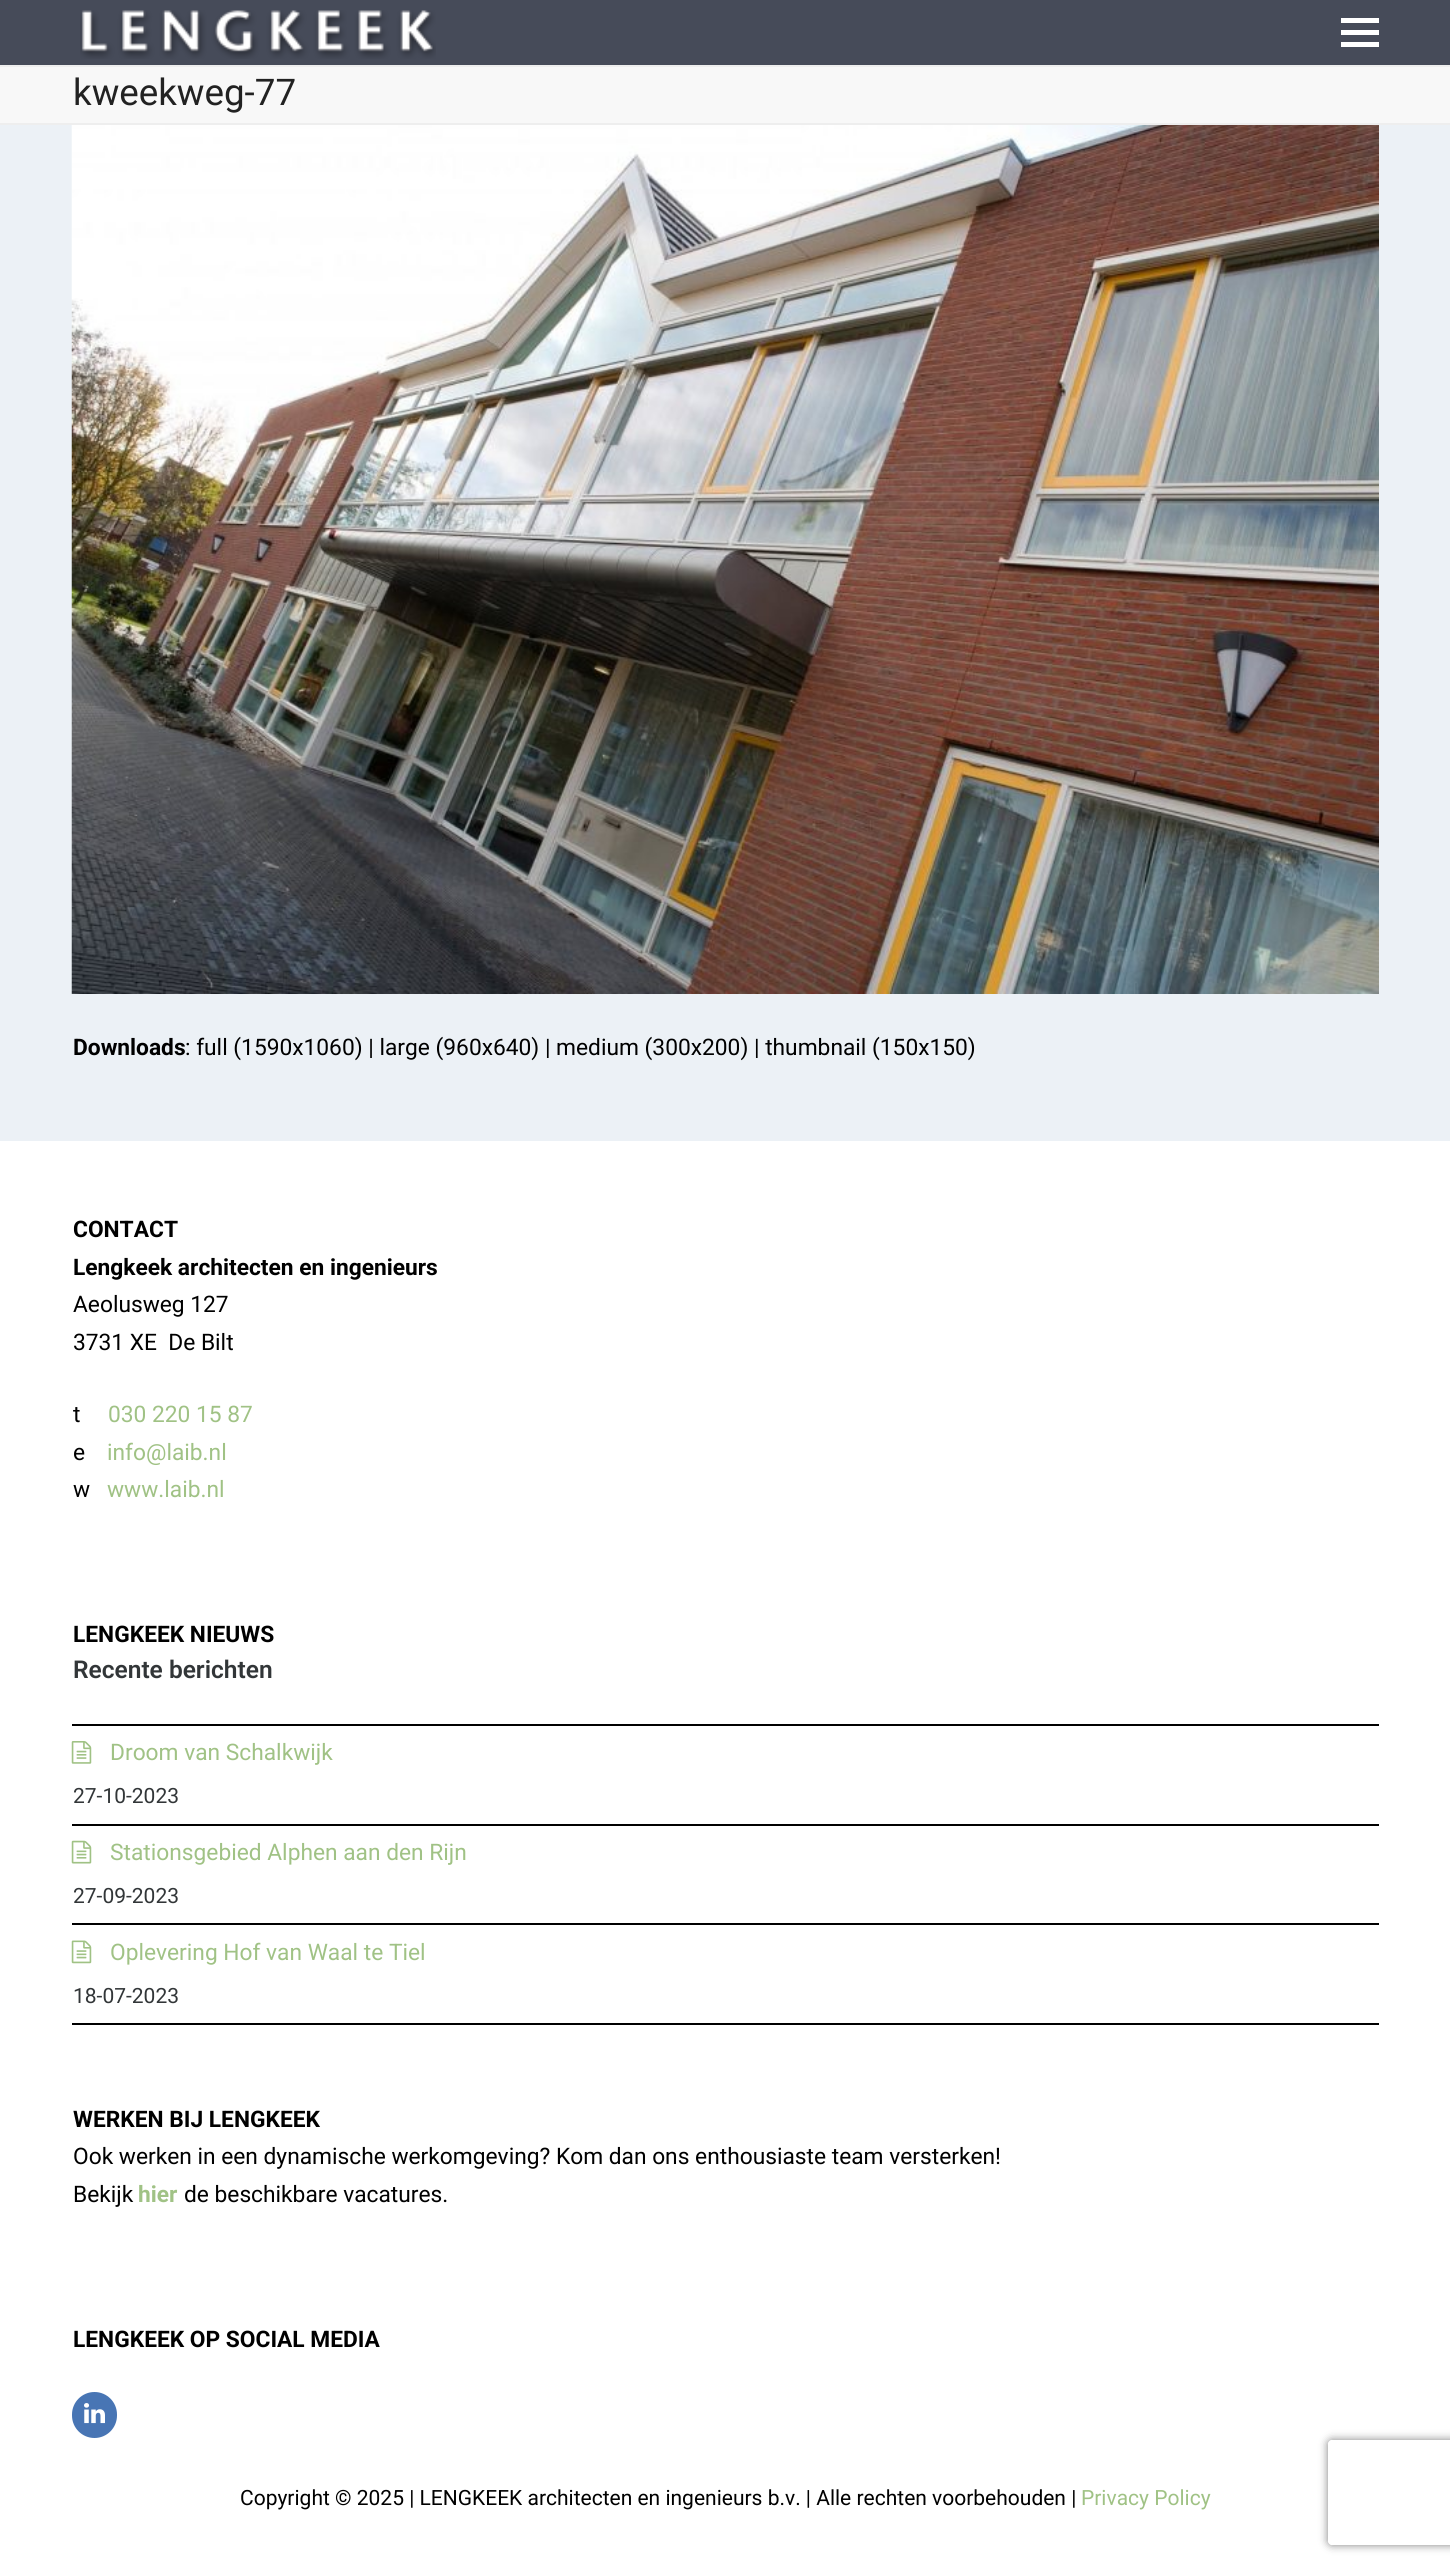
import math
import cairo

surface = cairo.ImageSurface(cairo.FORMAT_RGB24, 1450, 2568)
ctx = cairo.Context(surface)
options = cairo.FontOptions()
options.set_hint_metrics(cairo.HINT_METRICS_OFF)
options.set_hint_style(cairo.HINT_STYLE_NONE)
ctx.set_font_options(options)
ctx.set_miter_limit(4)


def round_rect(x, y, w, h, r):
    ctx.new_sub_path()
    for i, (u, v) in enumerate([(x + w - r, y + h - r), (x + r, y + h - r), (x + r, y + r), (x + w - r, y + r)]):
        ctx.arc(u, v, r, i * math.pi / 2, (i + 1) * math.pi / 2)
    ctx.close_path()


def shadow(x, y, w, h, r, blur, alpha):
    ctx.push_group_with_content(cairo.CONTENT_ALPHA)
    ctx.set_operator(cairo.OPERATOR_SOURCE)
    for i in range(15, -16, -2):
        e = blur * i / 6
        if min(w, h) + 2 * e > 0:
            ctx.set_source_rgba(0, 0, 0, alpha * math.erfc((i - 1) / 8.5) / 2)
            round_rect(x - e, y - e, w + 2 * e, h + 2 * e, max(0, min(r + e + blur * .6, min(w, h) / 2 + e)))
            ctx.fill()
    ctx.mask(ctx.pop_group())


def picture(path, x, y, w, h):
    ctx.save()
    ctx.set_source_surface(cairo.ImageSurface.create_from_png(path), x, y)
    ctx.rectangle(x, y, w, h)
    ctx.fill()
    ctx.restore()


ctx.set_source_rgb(0.922, 0.945, 0.961)
ctx.paint()
ctx.set_source_rgb(0.275, 0.294, 0.349)
ctx.rectangle(0, 0, 1450, 65)
ctx.fill()
picture("img1.png", 80, 10, 356, 49)
ctx.set_source_rgb(1, 1, 1)
ctx.rectangle(1341, 30, 38, 5)
ctx.fill()
ctx.rectangle(1341, 18, 38, 5)
ctx.fill()
ctx.rectangle(1341, 42, 38, 5)
ctx.fill()
ctx.set_source_rgb(0.969, 0.969, 0.969)
ctx.rectangle(0, 67, 1450, 56)
ctx.fill()
ctx.set_source_rgb(0.933, 0.933, 0.933)
ctx.rectangle(0, 65, 1450, 2)
ctx.fill()
ctx.rectangle(0, 123, 1450, 2)
ctx.fill()
ctx.select_font_face("Roboto")
ctx.set_font_size(36.75)
ctx.set_source_rgb(0.133, 0.133, 0.133)
ctx.move_to(73, 105)
ctx.show_text("kweekweg-77")
picture("img2.png", 71, 125, 1308, 869)
ctx.select_font_face("Roboto", cairo.FONT_SLANT_NORMAL, cairo.FONT_WEIGHT_BOLD)
ctx.set_font_size(22.75)
ctx.set_source_rgb(0, 0, 0)
ctx.move_to(73, 1055)
ctx.show_text("Downloads")
ctx.select_font_face("Roboto")
ctx.move_to(185, 1055)
ctx.show_text(": full (1590x1060) | large (960x640) | medium (300x200) | thumbnail (150x150)")
ctx.set_source_rgb(1, 1, 1)
ctx.rectangle(0, 1141, 1450, 1427)
ctx.fill()
ctx.select_font_face("Roboto", cairo.FONT_SLANT_NORMAL, cairo.FONT_WEIGHT_BOLD)
ctx.set_source_rgb(0, 0, 0)
ctx.move_to(73, 1237)
ctx.show_text("CONTACT")
ctx.move_to(73, 1275)
ctx.show_text("Lengkeek architecten en ingenieurs")
ctx.select_font_face("Roboto")
ctx.move_to(73, 1312)
ctx.show_text("Aeolusweg 127")
ctx.move_to(73, 1350)
ctx.show_text("3731 XE  De Bilt")
ctx.move_to(73, 1422)
ctx.show_text("t")
ctx.set_source_rgb(0.627, 0.761, 0.522)
ctx.move_to(108, 1422)
ctx.show_text("030 220 15 87")
ctx.set_source_rgb(0, 0, 0)
ctx.move_to(73, 1460)
ctx.show_text("e")
ctx.set_source_rgb(0.627, 0.761, 0.522)
ctx.move_to(107, 1460)
ctx.show_text("info@laib.nl")
ctx.set_source_rgb(0, 0, 0)
ctx.move_to(73, 1497)
ctx.show_text("w")
ctx.set_source_rgb(0.627, 0.761, 0.522)
ctx.move_to(107, 1497)
ctx.show_text("www.laib.nl")
ctx.select_font_face("Roboto", cairo.FONT_SLANT_NORMAL, cairo.FONT_WEIGHT_BOLD)
ctx.set_source_rgb(0, 0, 0)
ctx.move_to(73, 1642)
ctx.show_text("LENGKEEK NIEUWS")
ctx.select_font_face("Roboto SemiBold")
ctx.set_font_size(24.5)
ctx.set_source_rgb(0.196, 0.212, 0.22)
ctx.move_to(73, 1678)
ctx.show_text("Recente berichten")
ctx.set_source_rgb(0, 0, 0)
ctx.rectangle(72, 1724, 1307, 2)
ctx.fill()
ctx.rectangle(72, 1824, 1307, 2)
ctx.fill()
picture("img3.png", 71, 1741, 21, 23)
ctx.select_font_face("Roboto")
ctx.set_font_size(22.75)
ctx.set_source_rgb(0.627, 0.761, 0.522)
ctx.move_to(110, 1760)
ctx.show_text("Droom van Schalkwijk")
ctx.set_font_size(21)
ctx.set_source_rgb(0.196, 0.212, 0.22)
ctx.move_to(73, 1803)
ctx.show_text("27-10-2023")
ctx.set_source_rgb(0, 0, 0)
ctx.rectangle(72, 1923, 1307, 2)
ctx.fill()
picture("img4.png", 71, 1840, 21, 24)
ctx.set_font_size(22.75)
ctx.set_source_rgb(0.627, 0.761, 0.522)
ctx.move_to(110, 1860)
ctx.show_text("Stationsgebied Alphen aan den Rijn")
ctx.set_font_size(21)
ctx.set_source_rgb(0.196, 0.212, 0.22)
ctx.move_to(73, 1903)
ctx.show_text("27-09-2023")
ctx.set_source_rgb(0, 0, 0)
ctx.rectangle(72, 2023, 1307, 2)
ctx.fill()
picture("img5.png", 71, 1940, 21, 24)
ctx.set_font_size(22.75)
ctx.set_source_rgb(0.627, 0.761, 0.522)
ctx.move_to(110, 1960)
ctx.show_text("Oplevering Hof van Waal te Tiel")
ctx.set_font_size(21)
ctx.set_source_rgb(0.196, 0.212, 0.22)
ctx.move_to(73, 2003)
ctx.show_text("18-07-2023")
ctx.select_font_face("Roboto", cairo.FONT_SLANT_NORMAL, cairo.FONT_WEIGHT_BOLD)
ctx.set_font_size(22.75)
ctx.set_source_rgb(0, 0, 0)
ctx.move_to(73, 2127)
ctx.show_text("WERKEN BIJ LENGKEEK")
ctx.select_font_face("Roboto")
ctx.move_to(73, 2164)
ctx.show_text("Ook werken in een dynamische werkomgeving? Kom dan ons enthousiaste team versterken!")
ctx.move_to(73, 2202)
ctx.show_text("Bekijk")
ctx.select_font_face("Roboto", cairo.FONT_SLANT_NORMAL, cairo.FONT_WEIGHT_BOLD)
ctx.set_source_rgb(0.627, 0.761, 0.522)
ctx.move_to(138, 2202)
ctx.show_text("hier")
ctx.select_font_face("Roboto")
ctx.set_source_rgb(0, 0, 0)
ctx.move_to(184, 2202)
ctx.show_text("de beschikbare vacatures.")
ctx.select_font_face("Roboto", cairo.FONT_SLANT_NORMAL, cairo.FONT_WEIGHT_BOLD)
ctx.move_to(73, 2347)
ctx.show_text("LENGKEEK OP SOCIAL MEDIA")
ctx.set_source_rgb(0.282, 0.459, 0.706)
round_rect(72, 2392, 45, 46, 22.5)
ctx.fill()
picture("img6.png", 84, 2403, 21, 21)
ctx.select_font_face("Roboto")
ctx.set_font_size(21)
ctx.set_source_rgb(0, 0, 0)
ctx.move_to(240, 2505)
ctx.show_text("Copyright © 2025 | LENGKEEK architecten en ingenieurs b.v. | Alle rechten voorbehouden |")
ctx.set_source_rgb(0.627, 0.761, 0.522)
ctx.move_to(1081, 2505)
ctx.show_text("Privacy Policy")
ctx.save()
ctx.set_fill_rule(cairo.FILL_RULE_EVEN_ODD)
ctx.new_path()
ctx.move_to(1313, 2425)
ctx.line_to(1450, 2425)
ctx.line_to(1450, 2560)
ctx.line_to(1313, 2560)
ctx.close_path()
ctx.move_to(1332, 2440)
ctx.line_to(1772, 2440)
ctx.curve_to(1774, 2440, 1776, 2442, 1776, 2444)
ctx.line_to(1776, 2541)
ctx.curve_to(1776, 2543, 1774, 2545, 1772, 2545)
ctx.line_to(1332, 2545)
ctx.curve_to(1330, 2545, 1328, 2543, 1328, 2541)
ctx.line_to(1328, 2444)
ctx.curve_to(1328, 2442, 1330, 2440, 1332, 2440)
ctx.close_path()
ctx.clip()
ctx.set_source_rgb(0.502, 0.502, 0.502)
shadow(1328, 2440, 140, 105, 4, 4.5, 1)
ctx.restore()
surface.write_to_png("page.png")
